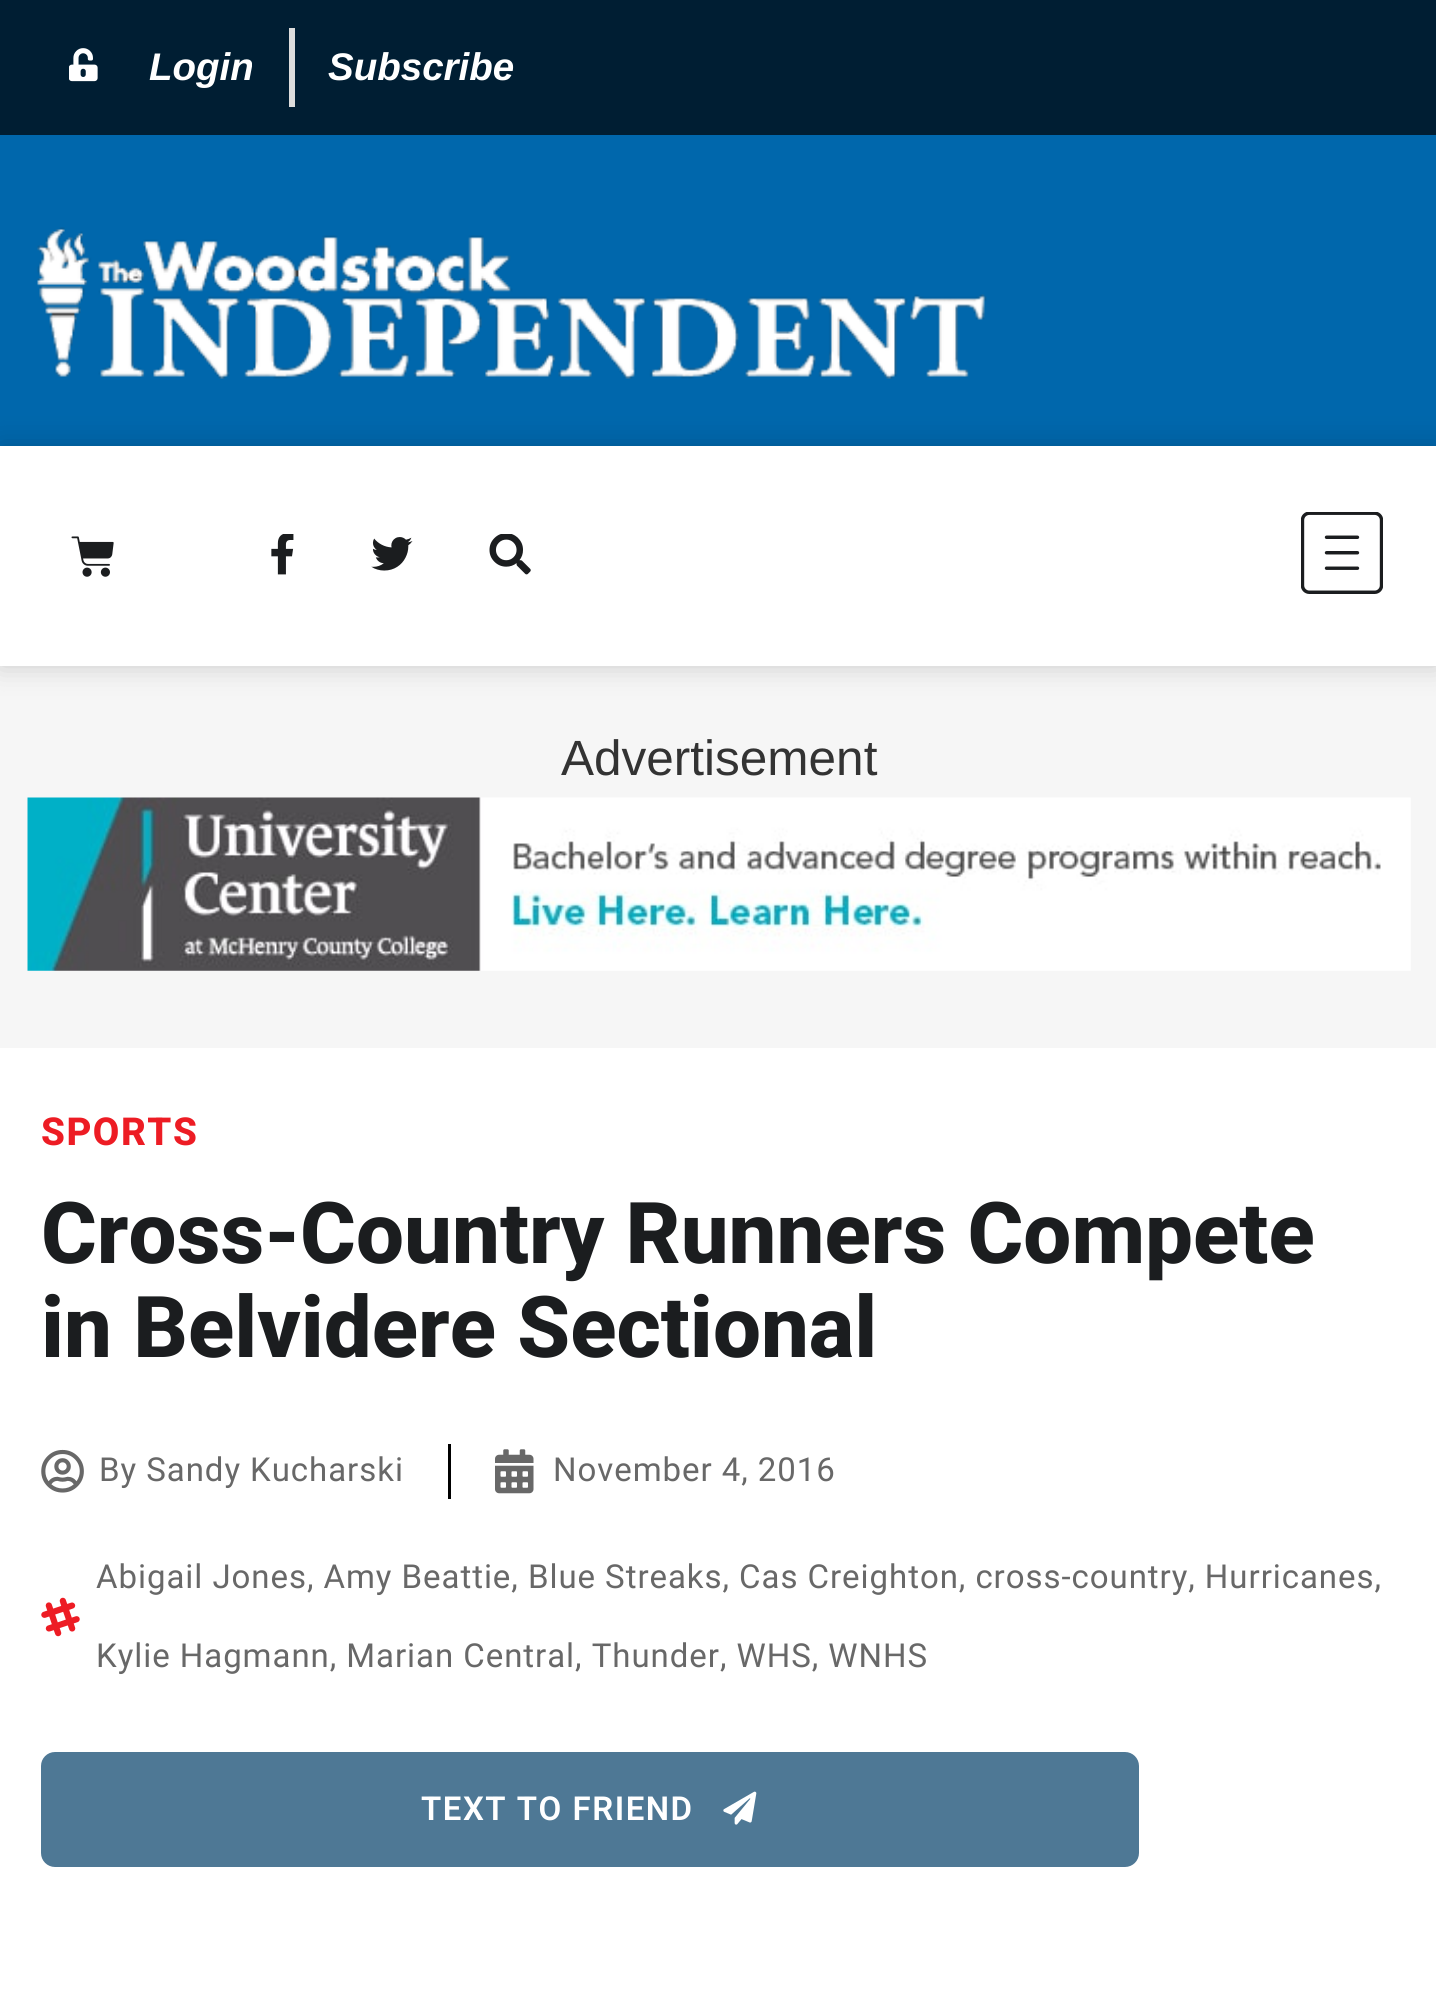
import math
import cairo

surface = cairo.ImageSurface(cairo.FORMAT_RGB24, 1436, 1990)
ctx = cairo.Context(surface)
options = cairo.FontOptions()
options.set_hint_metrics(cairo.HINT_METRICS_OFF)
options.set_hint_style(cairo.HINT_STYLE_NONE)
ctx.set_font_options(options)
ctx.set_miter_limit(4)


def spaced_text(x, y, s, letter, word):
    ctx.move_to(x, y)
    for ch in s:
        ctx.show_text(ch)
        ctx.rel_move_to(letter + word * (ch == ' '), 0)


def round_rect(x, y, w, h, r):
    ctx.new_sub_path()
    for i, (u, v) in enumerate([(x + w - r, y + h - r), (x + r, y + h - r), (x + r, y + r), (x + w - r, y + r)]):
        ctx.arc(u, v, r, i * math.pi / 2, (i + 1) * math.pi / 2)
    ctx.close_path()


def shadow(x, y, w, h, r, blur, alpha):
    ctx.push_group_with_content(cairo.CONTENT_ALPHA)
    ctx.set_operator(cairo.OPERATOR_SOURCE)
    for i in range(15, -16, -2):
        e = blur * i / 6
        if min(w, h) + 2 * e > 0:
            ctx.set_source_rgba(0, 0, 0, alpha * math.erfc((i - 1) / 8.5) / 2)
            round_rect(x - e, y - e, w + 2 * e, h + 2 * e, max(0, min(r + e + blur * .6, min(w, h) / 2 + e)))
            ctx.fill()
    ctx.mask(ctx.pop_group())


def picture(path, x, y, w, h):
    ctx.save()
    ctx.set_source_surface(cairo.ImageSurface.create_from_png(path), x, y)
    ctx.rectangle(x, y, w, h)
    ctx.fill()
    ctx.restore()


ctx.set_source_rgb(1, 1, 1)
ctx.paint()
ctx.set_source_rgb(0, 0.118, 0.2)
ctx.rectangle(0, 0, 1436, 135)
ctx.fill()
picture("img1.png", 69, 48, 29, 34)
ctx.select_font_face("Liberation Sans", cairo.FONT_SLANT_ITALIC, cairo.FONT_WEIGHT_BOLD)
ctx.set_font_size(38.5)
ctx.set_source_rgb(1, 1, 1)
ctx.move_to(149, 80)
ctx.show_text("Login")
ctx.set_source_rgb(0.867, 0.867, 0.867)
ctx.rectangle(289, 28, 6, 79)
ctx.fill()
ctx.set_source_rgb(1, 1, 1)
ctx.move_to(328, 80)
ctx.show_text("Subscribe")
ctx.set_source_rgb(0, 0.404, 0.675)
ctx.rectangle(0, 135, 1436, 311)
ctx.fill()
picture("img2.png", 37, 227, 950, 152)
ctx.set_source_rgb(0.961, 0.961, 0.961)
ctx.rectangle(0, 666, 1436, 382)
ctx.fill()
ctx.set_source_rgb(0, 0, 0)
shadow(0, 446, 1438, 220, 0, 14, 0.18)
ctx.set_source_rgb(1, 1, 1)
ctx.rectangle(0, 446, 1436, 220)
ctx.fill()
picture("img3.png", 71, 536, 43, 41)
picture("img4.png", 271, 534, 23, 41)
picture("img5.png", 371, 537, 42, 34)
picture("img6.png", 489, 534, 42, 41)
picture("img7.png", 1301, 512, 82, 82)
ctx.select_font_face("Liberation Sans")
ctx.set_font_size(49.5)
ctx.set_source_rgb(0.2, 0.2, 0.2)
ctx.move_to(561, 775)
ctx.show_text("Advertisement")
picture("img8.png", 27, 797, 1384, 174)
ctx.select_font_face("Roboto ExtraBold")
ctx.set_font_size(38.5)
ctx.set_source_rgb(0.929, 0.11, 0.141)
spaced_text(41, 1145, "SPORTS", 1.5, 0)
ctx.set_font_size(85.25)
ctx.set_source_rgb(0.106, 0.114, 0.122)
ctx.move_to(41, 1263)
ctx.show_text("Cross-Country Runners Compete")
ctx.move_to(41, 1357)
ctx.show_text("in Belvidere Sectional")
picture("img9.png", 41, 1449, 43, 44)
ctx.select_font_face("Roboto")
ctx.set_font_size(33)
ctx.set_source_rgb(0.408, 0.408, 0.408)
spaced_text(99, 1481, "By Sandy Kucharski", 0.95, 0)
ctx.set_source_rgb(0, 0, 0)
ctx.rectangle(448, 1444, 3, 55)
ctx.fill()
picture("img10.png", 495, 1449, 39, 45)
ctx.set_source_rgb(0.408, 0.408, 0.408)
spaced_text(553, 1481, "November 4, 2016", 0.95, 0)
picture("img11.png", 41, 1597, 39, 40)
spaced_text(96, 1588, "Abigail Jones, Amy Beattie, Blue Streaks, Cas Creighton, cross-country, Hurricanes,", 0.95, 0)
spaced_text(96, 1667, "Kylie Hagmann, Marian Central, Thunder, WHS, WNHS", 0.95, 0)
ctx.set_source_rgb(0.306, 0.471, 0.584)
round_rect(41, 1752, 1098, 115, 14)
ctx.fill()
ctx.select_font_face("Roboto SemiBold")
ctx.set_source_rgb(1, 1, 1)
spaced_text(421, 1820, "TEXT TO FRIEND", 1.5, 0)
picture("img12.png", 723, 1791, 34, 34)
surface.write_to_png("page.png")
